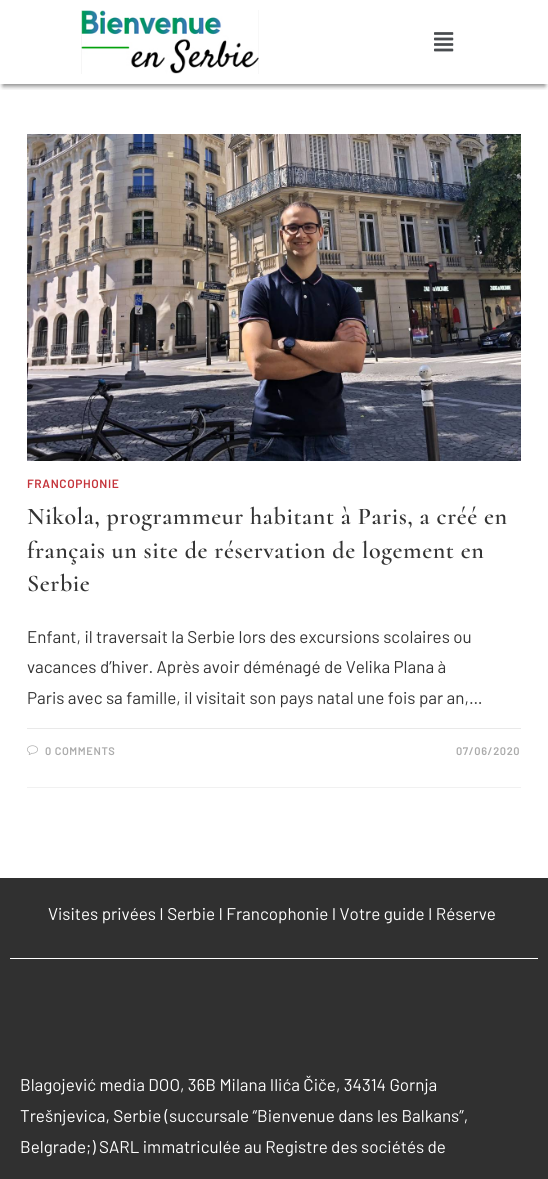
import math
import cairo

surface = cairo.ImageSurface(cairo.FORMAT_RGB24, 548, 1179)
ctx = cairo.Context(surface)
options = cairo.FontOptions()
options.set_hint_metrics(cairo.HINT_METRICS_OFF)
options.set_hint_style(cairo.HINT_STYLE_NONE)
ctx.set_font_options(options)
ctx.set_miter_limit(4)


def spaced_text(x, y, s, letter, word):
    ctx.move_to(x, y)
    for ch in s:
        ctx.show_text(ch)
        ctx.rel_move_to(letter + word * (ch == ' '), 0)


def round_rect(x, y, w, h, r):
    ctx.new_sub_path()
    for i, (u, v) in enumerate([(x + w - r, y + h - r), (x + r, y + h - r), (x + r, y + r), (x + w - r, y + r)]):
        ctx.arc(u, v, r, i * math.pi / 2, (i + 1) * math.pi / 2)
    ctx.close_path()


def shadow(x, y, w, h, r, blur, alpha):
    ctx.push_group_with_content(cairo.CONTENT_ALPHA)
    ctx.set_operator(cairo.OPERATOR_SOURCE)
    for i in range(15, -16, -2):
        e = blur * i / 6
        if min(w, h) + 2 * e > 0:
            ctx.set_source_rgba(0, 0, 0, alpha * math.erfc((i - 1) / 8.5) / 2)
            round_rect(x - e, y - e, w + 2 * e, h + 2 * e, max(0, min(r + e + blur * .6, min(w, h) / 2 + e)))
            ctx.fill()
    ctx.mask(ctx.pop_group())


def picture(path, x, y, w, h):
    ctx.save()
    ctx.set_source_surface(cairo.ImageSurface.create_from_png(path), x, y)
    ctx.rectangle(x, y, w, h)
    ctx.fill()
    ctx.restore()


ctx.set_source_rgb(1, 1, 1)
ctx.paint()
ctx.save()
ctx.rectangle(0, 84, 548, 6)
ctx.clip()
ctx.set_source_rgb(0, 0, 0)
shadow(3, 8, 542, 78, 0, 2.5, 0.5)
ctx.restore()
picture("img1.png", 81, 10, 178, 64)
picture("img2.png", 434, 32, 20, 20)
ctx.set_source_rgb(0.945, 0.945, 0.945)
ctx.rectangle(27, 787, 494, 1)
ctx.fill()
picture("img3.png", 27, 134, 494, 327)
ctx.select_font_face("Barlow SemiBold")
ctx.set_font_size(12)
ctx.set_source_rgb(0.773, 0.208, 0.235)
spaced_text(27, 488, "FRANCOPHONIE", 0.6, 0)
ctx.select_font_face("Cormorant SemiBold")
ctx.set_font_size(24)
ctx.set_source_rgb(0.2, 0.2, 0.2)
spaced_text(27, 524, "Nikola, programmeur habitant à Paris, a créé en", 0.6, 0)
spaced_text(27, 558, "français un site de réservation de logement en", 0.6, 0)
spaced_text(27, 591, "Serbie", 0.6, 0)
ctx.select_font_face("Barlow")
ctx.set_font_size(17)
ctx.move_to(27, 643)
ctx.show_text("Enfant, il traversait la Serbie lors des excursions scolaires ou")
ctx.move_to(27, 673)
ctx.show_text("vacances d’hiver. Après avoir déménagé de Velika Plana à")
ctx.move_to(27, 704)
ctx.show_text("Paris avec sa famille, il visitait son pays natal une fois par an,…")
ctx.set_source_rgb(0.914, 0.914, 0.914)
ctx.rectangle(27, 728, 494, 1)
ctx.fill()
picture("img4.png", 27, 745, 11, 10)
ctx.select_font_face("Barlow SemiBold")
ctx.set_font_size(11)
ctx.set_source_rgb(0.671, 0.671, 0.671)
spaced_text(45, 755, "0 COMMENTS", 0.6, 0)
spaced_text(456, 755, "07/06/2020", 0.6, 0)
ctx.set_source_rgb(0.188, 0.188, 0.188)
ctx.rectangle(0, 878, 548, 301)
ctx.fill()
ctx.select_font_face("Barlow")
ctx.set_font_size(17)
ctx.set_source_rgb(1, 1, 1)
ctx.move_to(48, 920)
ctx.show_text("Visites privées I Serbie I Francophonie I Votre guide I Réserve")
ctx.rectangle(10, 958, 528, 1)
ctx.fill()
ctx.move_to(20, 1091)
ctx.show_text("Blagojević media DOO, 36B Milana Ilića Čiče, 34314 Gornja")
ctx.move_to(20, 1122)
ctx.show_text("Trešnjevica, Serbie (succursale “Bienvenue dans les Balkans”,")
ctx.move_to(20, 1153)
ctx.show_text("Belgrade;) SARL immatriculée au Registre des sociétés de")
surface.write_to_png("page.png")
